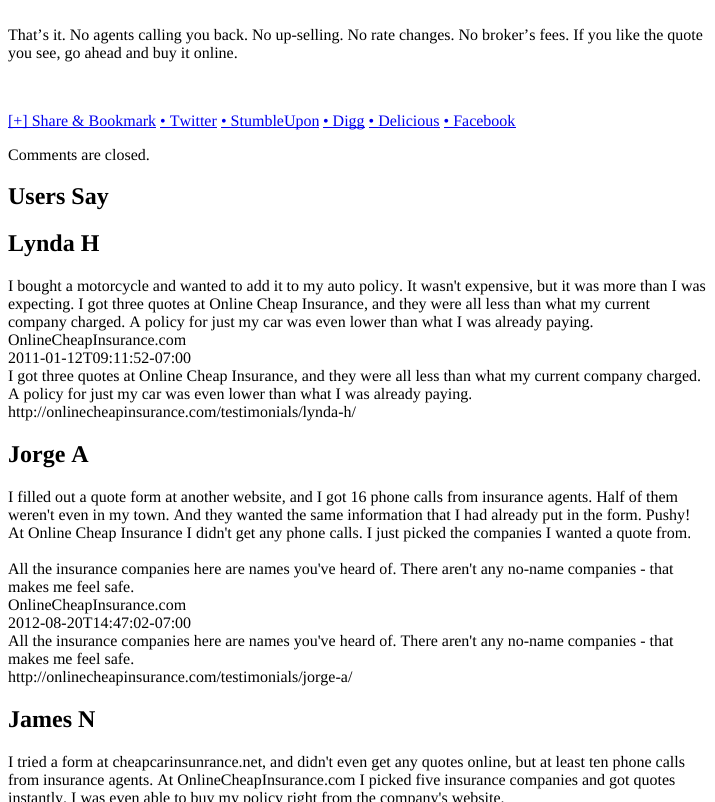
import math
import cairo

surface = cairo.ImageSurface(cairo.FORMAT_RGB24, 715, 802)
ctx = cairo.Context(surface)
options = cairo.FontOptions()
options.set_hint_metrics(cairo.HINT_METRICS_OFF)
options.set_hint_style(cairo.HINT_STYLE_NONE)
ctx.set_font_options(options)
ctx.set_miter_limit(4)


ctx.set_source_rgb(1, 1, 1)
ctx.paint()
ctx.select_font_face("Liberation Serif")
ctx.set_font_size(16)
ctx.set_source_rgb(0, 0, 0)
ctx.move_to(8, 40)
ctx.show_text("That’s it. No agents calling you back. No up-selling. No rate changes. No broker’s fees. If you like the quote")
ctx.move_to(8, 58)
ctx.show_text("you see, go ahead and buy it online.")
ctx.set_source_rgb(0, 0, 0.933)
ctx.rectangle(8, 127, 148, 1)
ctx.fill()
ctx.move_to(8, 126)
ctx.show_text("[+] Share & Bookmark • Twitter")
ctx.rectangle(221, 127, 98, 1)
ctx.fill()
ctx.move_to(221, 126)
ctx.show_text("• StumbleUpon")
ctx.rectangle(160, 127, 57, 1)
ctx.fill()
ctx.rectangle(323, 127, 42, 1)
ctx.fill()
ctx.move_to(323, 126)
ctx.show_text("• Digg • Delicious • Facebook")
ctx.rectangle(369, 127, 71, 1)
ctx.fill()
ctx.rectangle(444, 127, 72, 1)
ctx.fill()
ctx.set_source_rgb(0, 0, 0)
ctx.move_to(8, 160)
ctx.show_text("Comments are closed.")
ctx.select_font_face("Liberation Serif", cairo.FONT_SLANT_NORMAL, cairo.FONT_WEIGHT_BOLD)
ctx.set_font_size(24)
ctx.move_to(8, 204)
ctx.show_text("Users Say")
ctx.move_to(8, 251)
ctx.show_text("Lynda H")
ctx.select_font_face("Liberation Serif")
ctx.set_font_size(16)
ctx.move_to(8, 291)
ctx.show_text("I bought a motorcycle and wanted to add it to my auto policy. It wasn't expensive, but it was more than I was")
ctx.move_to(8, 309)
ctx.show_text("expecting. I got three quotes at Online Cheap Insurance, and they were all less than what my current")
ctx.move_to(8, 327)
ctx.show_text("company charged. A policy for just my car was even lower than what I was already paying.")
ctx.move_to(8, 345)
ctx.show_text("OnlineCheapInsurance.com")
ctx.move_to(8, 363)
ctx.show_text("2011-01-12T09:11:52-07:00")
ctx.move_to(8, 381)
ctx.show_text("I got three quotes at Online Cheap Insurance, and they were all less than what my current company charged.")
ctx.move_to(8, 399)
ctx.show_text("A policy for just my car was even lower than what I was already paying.")
ctx.move_to(8, 417)
ctx.show_text("http://onlinecheapinsurance.com/testimonials/lynda-h/")
ctx.select_font_face("Liberation Serif", cairo.FONT_SLANT_NORMAL, cairo.FONT_WEIGHT_BOLD)
ctx.set_font_size(24)
ctx.move_to(8, 462)
ctx.show_text("Jorge A")
ctx.select_font_face("Liberation Serif")
ctx.set_font_size(16)
ctx.move_to(8, 502)
ctx.show_text("I filled out a quote form at another website, and I got 16 phone calls from insurance agents. Half of them")
ctx.move_to(8, 520)
ctx.show_text("weren't even in my town. And they wanted the same information that I had already put in the form. Pushy!")
ctx.move_to(8, 538)
ctx.show_text("At Online Cheap Insurance I didn't get any phone calls. I just picked the companies I wanted a quote from.")
ctx.move_to(8, 574)
ctx.show_text("All the insurance companies here are names you've heard of. There aren't any no-name companies - that")
ctx.move_to(8, 592)
ctx.show_text("makes me feel safe.")
ctx.move_to(8, 610)
ctx.show_text("OnlineCheapInsurance.com")
ctx.move_to(8, 628)
ctx.show_text("2012-08-20T14:47:02-07:00")
ctx.move_to(8, 646)
ctx.show_text("All the insurance companies here are names you've heard of. There aren't any no-name companies - that")
ctx.move_to(8, 664)
ctx.show_text("makes me feel safe.")
ctx.move_to(8, 682)
ctx.show_text("http://onlinecheapinsurance.com/testimonials/jorge-a/")
ctx.select_font_face("Liberation Serif", cairo.FONT_SLANT_NORMAL, cairo.FONT_WEIGHT_BOLD)
ctx.set_font_size(24)
ctx.move_to(8, 727)
ctx.show_text("James N")
ctx.select_font_face("Liberation Serif")
ctx.set_font_size(16)
ctx.move_to(8, 767)
ctx.show_text("I tried a form at cheapcarinsunrance.net, and didn't even get any quotes online, but at least ten phone calls")
ctx.move_to(8, 785)
ctx.show_text("from insurance agents. At OnlineCheapInsurance.com I picked five insurance companies and got quotes")
ctx.move_to(8, 803)
ctx.show_text("instantly. I was even able to buy my policy right from the company's website.")
surface.write_to_png("page.png")
